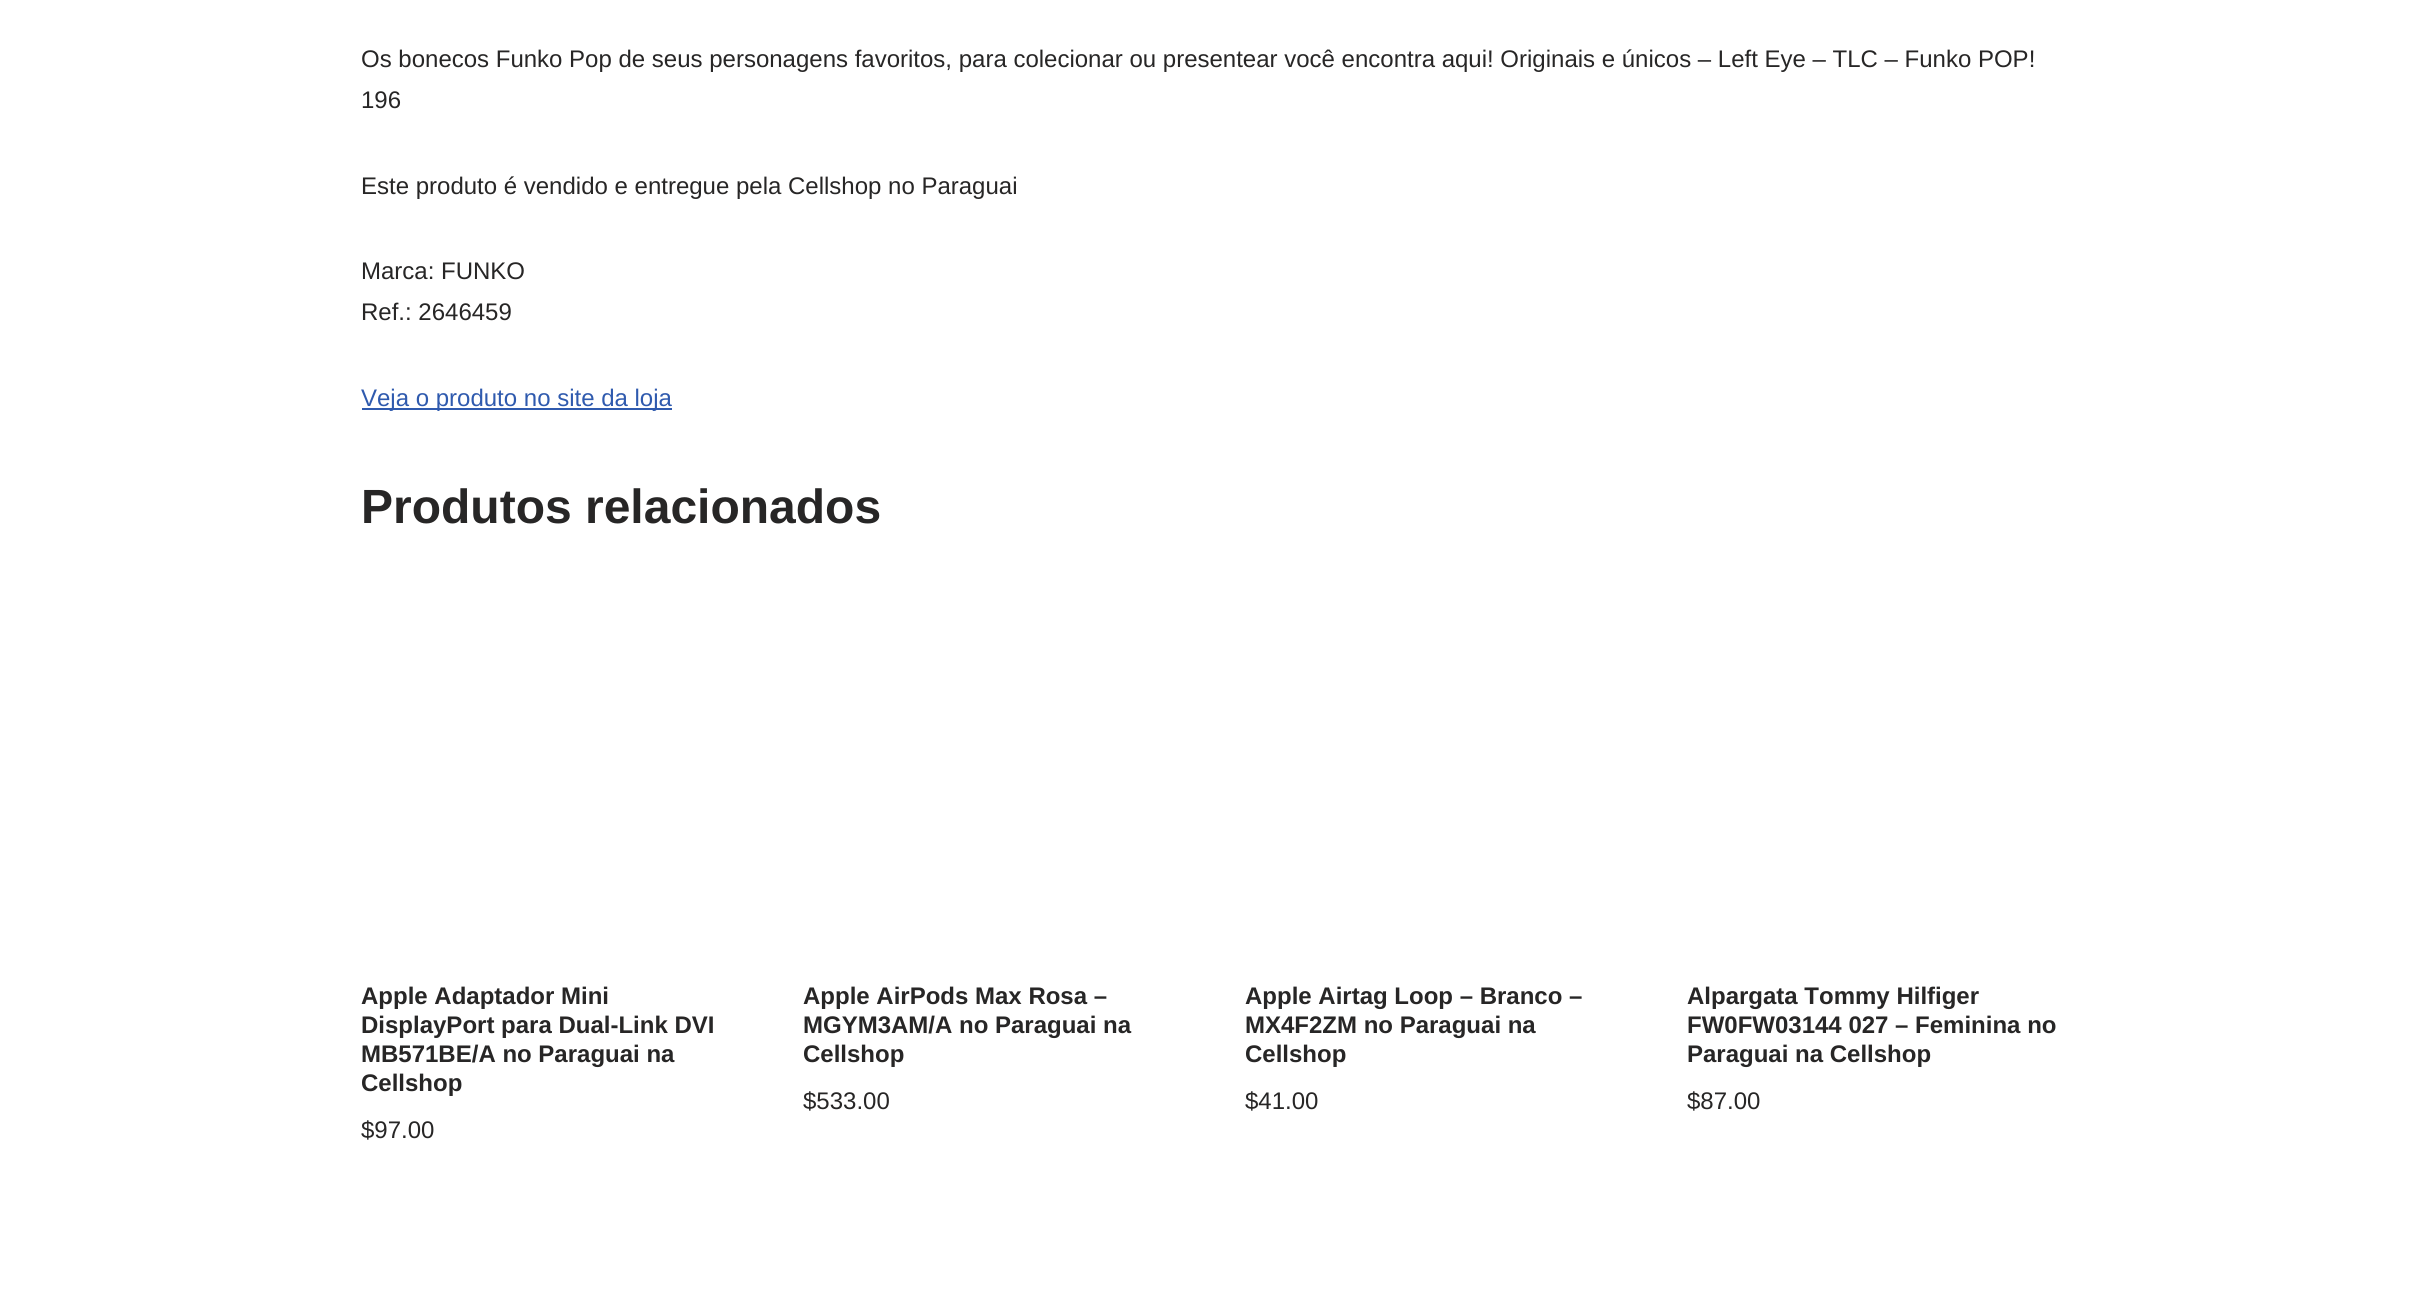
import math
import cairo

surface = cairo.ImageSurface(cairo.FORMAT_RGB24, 2431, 1305)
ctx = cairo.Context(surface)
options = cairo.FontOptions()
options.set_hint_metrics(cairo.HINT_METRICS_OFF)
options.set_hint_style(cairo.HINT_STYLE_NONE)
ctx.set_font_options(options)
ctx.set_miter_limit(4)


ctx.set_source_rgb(1, 1, 1)
ctx.paint()
ctx.select_font_face("Liberation Sans")
ctx.set_font_size(24)
ctx.set_source_rgb(0.153, 0.149, 0.149)
ctx.move_to(361, 67)
ctx.show_text("Os bonecos Funko Pop de seus personagens favoritos, para colecionar ou presentear você encontra aqui! Originais e únicos – Left Eye – TLC – Funko POP!")
ctx.move_to(361, 108)
ctx.show_text("196")
ctx.move_to(361, 194)
ctx.show_text("Este produto é vendido e entregue pela Cellshop no Paraguai")
ctx.move_to(361, 279)
ctx.show_text("Marca: FUNKO")
ctx.move_to(361, 320)
ctx.show_text("Ref.: 2646459")
ctx.set_source_rgb(0.184, 0.353, 0.682)
ctx.rectangle(362, 408, 310, 2)
ctx.fill()
ctx.move_to(361, 406)
ctx.show_text("Veja o produto no site da loja")
ctx.select_font_face("Liberation Sans", cairo.FONT_SLANT_NORMAL, cairo.FONT_WEIGHT_BOLD)
ctx.set_font_size(48)
ctx.set_source_rgb(0.153, 0.149, 0.149)
ctx.move_to(361, 523)
ctx.show_text("Produtos relacionados")
ctx.set_font_size(24)
ctx.move_to(361, 1004)
ctx.show_text("Apple Adaptador Mini")
ctx.move_to(361, 1033)
ctx.show_text("DisplayPort para Dual-Link DVI")
ctx.move_to(361, 1062)
ctx.show_text("MB571BE/A no Paraguai na")
ctx.move_to(361, 1091)
ctx.show_text("Cellshop")
ctx.select_font_face("Liberation Sans")
ctx.move_to(361, 1138)
ctx.show_text("$97.00")
ctx.select_font_face("Liberation Sans", cairo.FONT_SLANT_NORMAL, cairo.FONT_WEIGHT_BOLD)
ctx.move_to(803, 1004)
ctx.show_text("Apple AirPods Max Rosa –")
ctx.move_to(803, 1033)
ctx.show_text("MGYM3AM/A no Paraguai na")
ctx.move_to(803, 1062)
ctx.show_text("Cellshop")
ctx.select_font_face("Liberation Sans")
ctx.move_to(803, 1109)
ctx.show_text("$533.00")
ctx.select_font_face("Liberation Sans", cairo.FONT_SLANT_NORMAL, cairo.FONT_WEIGHT_BOLD)
ctx.move_to(1245, 1004)
ctx.show_text("Apple Airtag Loop – Branco –")
ctx.move_to(1245, 1033)
ctx.show_text("MX4F2ZM no Paraguai na")
ctx.move_to(1245, 1062)
ctx.show_text("Cellshop")
ctx.select_font_face("Liberation Sans")
ctx.move_to(1245, 1109)
ctx.show_text("$41.00")
ctx.select_font_face("Liberation Sans", cairo.FONT_SLANT_NORMAL, cairo.FONT_WEIGHT_BOLD)
ctx.move_to(1687, 1004)
ctx.show_text("Alpargata Tommy Hilfiger")
ctx.move_to(1687, 1033)
ctx.show_text("FW0FW03144 027 – Feminina no")
ctx.move_to(1687, 1062)
ctx.show_text("Paraguai na Cellshop")
ctx.select_font_face("Liberation Sans")
ctx.move_to(1687, 1109)
ctx.show_text("$87.00")
surface.write_to_png("page.png")
